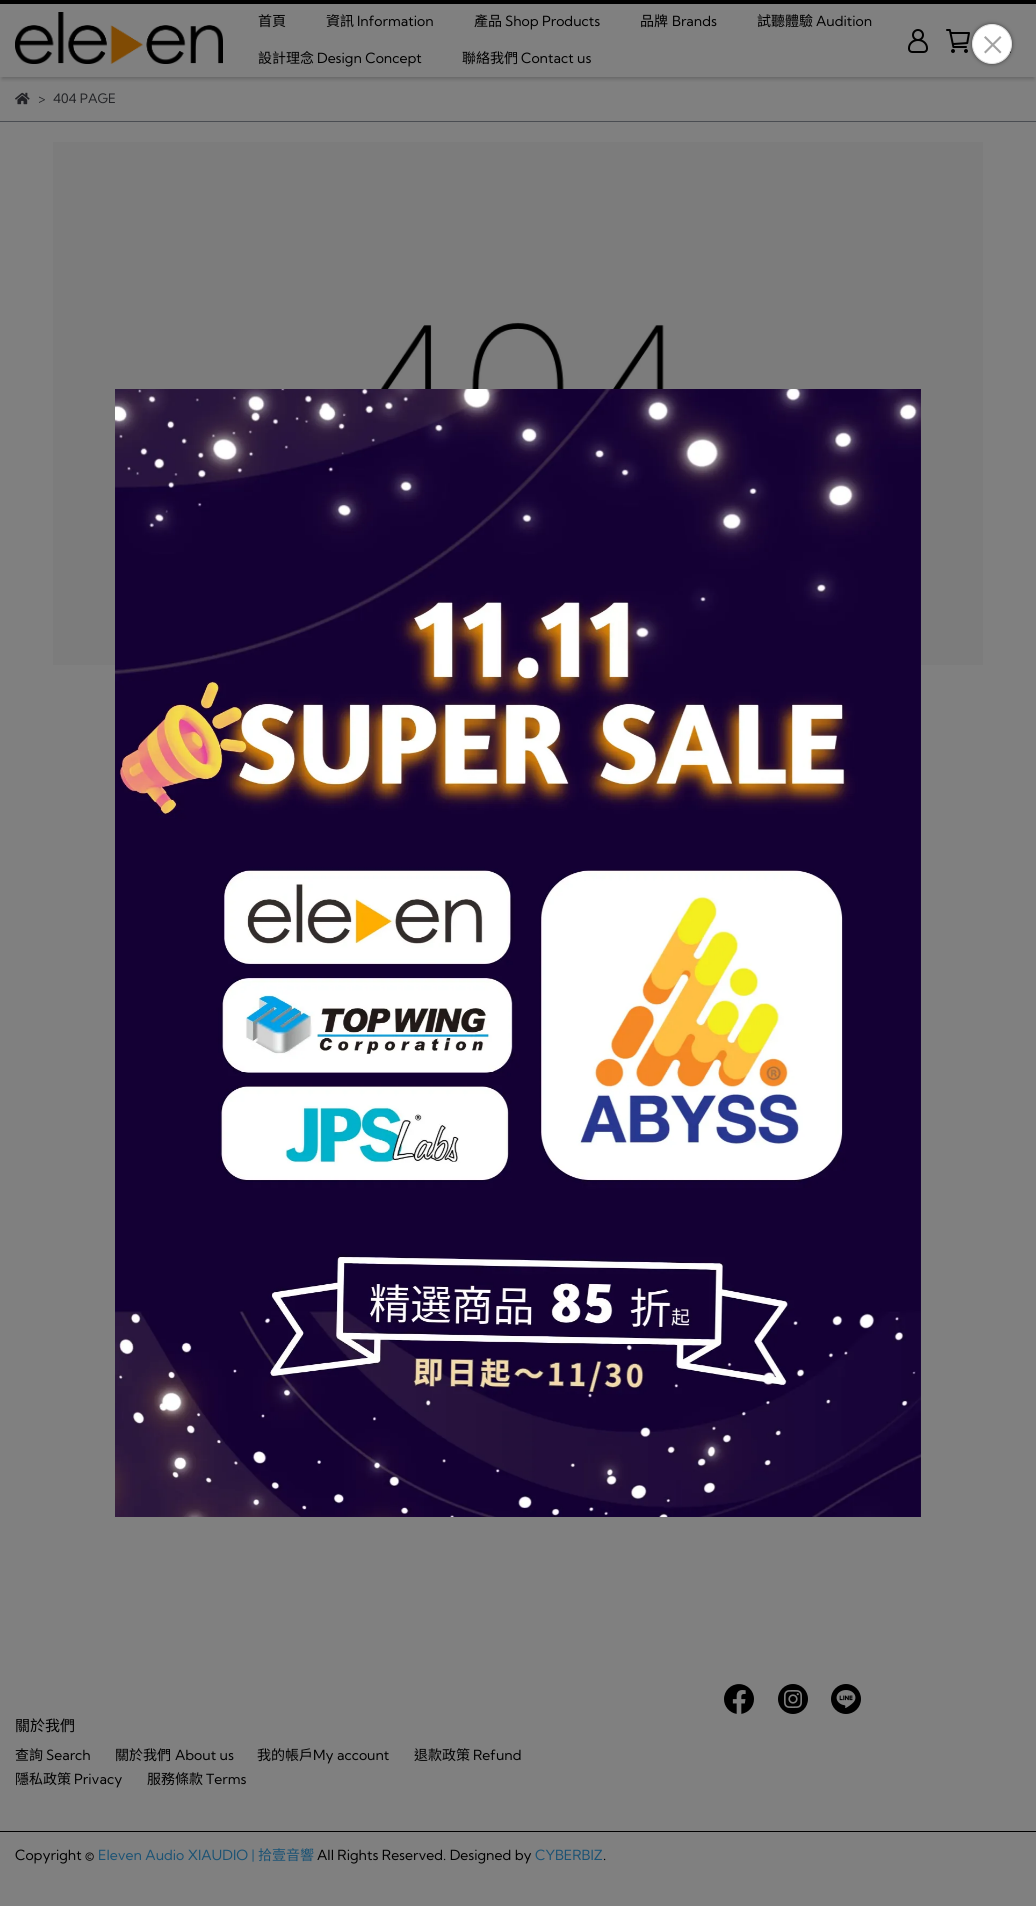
import math
import cairo

surface = cairo.ImageSurface(cairo.FORMAT_RGB24, 1036, 1906)
ctx = cairo.Context(surface)
options = cairo.FontOptions()
options.set_hint_metrics(cairo.HINT_METRICS_OFF)
options.set_hint_style(cairo.HINT_STYLE_NONE)
ctx.set_font_options(options)
ctx.set_miter_limit(4)


def round_rect(x, y, w, h, r):
    ctx.new_sub_path()
    for i, (u, v) in enumerate([(x + w - r, y + h - r), (x + r, y + h - r), (x + r, y + r), (x + w - r, y + r)]):
        ctx.arc(u, v, r, i * math.pi / 2, (i + 1) * math.pi / 2)
    ctx.close_path()


def shadow(x, y, w, h, r, blur, alpha):
    ctx.push_group_with_content(cairo.CONTENT_ALPHA)
    ctx.set_operator(cairo.OPERATOR_SOURCE)
    for i in range(15, -16, -2):
        e = blur * i / 6
        if min(w, h) + 2 * e > 0:
            ctx.set_source_rgba(0, 0, 0, alpha * math.erfc((i - 1) / 8.5) / 2)
            round_rect(x - e, y - e, w + 2 * e, h + 2 * e, max(0, min(r + e + blur * .6, min(w, h) / 2 + e)))
            ctx.fill()
    ctx.mask(ctx.pop_group())


def picture(path, x, y, w, h):
    ctx.save()
    ctx.set_source_surface(cairo.ImageSurface.create_from_png(path), x, y)
    ctx.rectangle(x, y, w, h)
    ctx.fill()
    ctx.restore()


ctx.set_source_rgb(0.502, 0.502, 0.502)
ctx.paint()
ctx.save()
ctx.rectangle(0, 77, 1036, 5)
ctx.clip()
ctx.set_source_rgb(0, 0, 0)
shadow(2, 10, 1032, 69, 0, 2, 0.2)
ctx.restore()
ctx.set_source_rgb(0, 0, 0)
ctx.rectangle(0, 0, 1036, 4)
ctx.fill()
picture("img1.png", 15, 12, 208, 52)
ctx.select_font_face("Noto Sans CJK TC")
ctx.set_font_size(14)
ctx.move_to(258, 26)
ctx.show_text("首頁")
ctx.move_to(326, 26)
ctx.show_text("資訊")
ctx.select_font_face("Kumbh Sans")
ctx.move_to(357, 26)
ctx.show_text("Information")
ctx.select_font_face("Noto Sans CJK TC")
ctx.move_to(474, 26)
ctx.show_text("產品")
ctx.select_font_face("Kumbh Sans")
ctx.move_to(505, 26)
ctx.show_text("Shop Products")
ctx.select_font_face("Noto Sans CJK TC")
ctx.move_to(640, 26)
ctx.show_text("品牌")
ctx.select_font_face("Kumbh Sans")
ctx.move_to(672, 26)
ctx.show_text("Brands")
ctx.select_font_face("Noto Sans CJK TC")
ctx.move_to(757, 26)
ctx.show_text("試聽體驗")
ctx.select_font_face("Kumbh Sans")
ctx.move_to(816, 26)
ctx.show_text("Audition")
ctx.select_font_face("Noto Sans CJK TC")
ctx.move_to(258, 63)
ctx.show_text("設計理念")
ctx.select_font_face("Kumbh Sans")
ctx.move_to(317, 63)
ctx.show_text("Design Concept")
ctx.select_font_face("Noto Sans CJK TC")
ctx.move_to(462, 63)
ctx.show_text("聯絡我們")
ctx.select_font_face("Kumbh Sans")
ctx.move_to(521, 63)
ctx.show_text("Contact us")
picture("img2.png", 908, 29, 20, 24)
picture("img3.png", 946, 29, 24, 24)
ctx.new_path()
ctx.move_to(1006, 48)
ctx.line_to(1010, 52)
ctx.set_line_cap(cairo.LINE_CAP_ROUND)
ctx.set_line_join(cairo.LINE_JOIN_ROUND)
ctx.stroke()
ctx.set_source_rgb(0.29, 0.302, 0.322)
ctx.rectangle(0, 121, 1036, 1)
ctx.fill()
picture("img4.png", 15, 92, 15, 13)
ctx.set_font_size(13)
ctx.set_source_rgb(0.133, 0.137, 0.149)
ctx.move_to(38, 103)
ctx.show_text(">")
ctx.move_to(53, 103)
ctx.show_text("404 PAGE")
picture("img5.png", 53, 142, 930, 523)
ctx.set_source_rgb(0, 0, 0)
shadow(972, 24, 40, 40, 20, 2, 0.5)
ctx.set_source_rgb(1, 1, 1)
ctx.arc(992, 44, 19.5, 0, 2 * math.pi)
ctx.fill_preserve()
ctx.set_source_rgb(0.886, 0.886, 0.886)
ctx.set_line_width(1)
ctx.set_line_cap(cairo.LINE_CAP_BUTT)
ctx.set_line_join(cairo.LINE_JOIN_MITER)
ctx.stroke()
ctx.set_source_rgb(0.639, 0.639, 0.639)
ctx.new_path()
ctx.move_to(985.5, 36)
ctx.line_to(1001.5, 52)
ctx.line_to(1000, 53.5)
ctx.line_to(984, 37.5)
ctx.close_path()
ctx.fill()
ctx.new_path()
ctx.move_to(984, 52)
ctx.line_to(1000, 36)
ctx.line_to(1001.5, 37.5)
ctx.line_to(985.5, 53.5)
ctx.close_path()
ctx.fill()
picture("img6.png", 115, 389, 806, 1128)
picture("img7.png", 724, 1684, 30, 30)
picture("img8.png", 778, 1684, 30, 30)
picture("img9.png", 831, 1684, 30, 30)
ctx.select_font_face("Noto Sans CJK TC")
ctx.set_font_size(15)
ctx.set_source_rgb(0, 0, 0)
ctx.move_to(15, 1731)
ctx.show_text("關於我們")
ctx.set_font_size(14)
ctx.move_to(15, 1760)
ctx.show_text("查詢")
ctx.select_font_face("Kumbh Sans")
ctx.move_to(46, 1760)
ctx.show_text("Search")
ctx.select_font_face("Noto Sans CJK TC")
ctx.move_to(115, 1760)
ctx.show_text("關於我們")
ctx.select_font_face("Kumbh Sans")
ctx.move_to(175, 1760)
ctx.show_text("About us")
ctx.select_font_face("Noto Sans CJK TC")
ctx.move_to(257, 1760)
ctx.show_text("我的帳戶")
ctx.select_font_face("Kumbh Sans")
ctx.move_to(313, 1760)
ctx.show_text("My account")
ctx.select_font_face("Noto Sans CJK TC")
ctx.move_to(414, 1760)
ctx.show_text("退款政策")
ctx.select_font_face("Kumbh Sans")
ctx.move_to(473, 1760)
ctx.show_text("Refund")
ctx.select_font_face("Noto Sans CJK TC")
ctx.move_to(15, 1784)
ctx.show_text("隱私政策")
ctx.select_font_face("Kumbh Sans")
ctx.move_to(74, 1784)
ctx.show_text("Privacy")
ctx.select_font_face("Noto Sans CJK TC")
ctx.move_to(147, 1784)
ctx.show_text("服務條款")
ctx.select_font_face("Kumbh Sans")
ctx.move_to(206, 1784)
ctx.show_text("Terms")
ctx.rectangle(0, 1831, 1036, 1)
ctx.fill()
ctx.move_to(15, 1860)
ctx.show_text("Copyright ©")
ctx.set_source_rgb(0.102, 0.322, 0.455)
ctx.move_to(98, 1860)
ctx.show_text("Eleven Audio XIAUDIO |")
ctx.select_font_face("Noto Sans CJK TC")
ctx.move_to(258, 1860)
ctx.show_text("拾壹音響")
ctx.select_font_face("Kumbh Sans")
ctx.set_source_rgb(0, 0, 0)
ctx.move_to(317, 1860)
ctx.show_text("All Rights Reserved. Designed by")
ctx.set_source_rgb(0.102, 0.322, 0.455)
ctx.move_to(535, 1860)
ctx.show_text("CYBERBIZ")
ctx.set_source_rgb(0, 0, 0)
ctx.move_to(603, 1860)
ctx.show_text(".")
surface.write_to_png("page.png")
